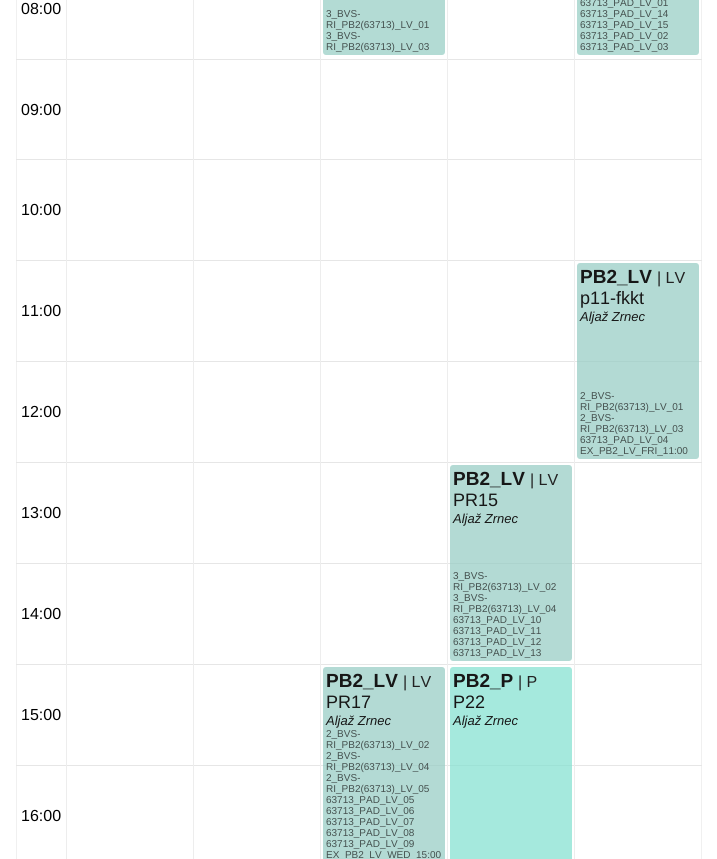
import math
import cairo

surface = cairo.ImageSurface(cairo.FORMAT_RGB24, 717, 859)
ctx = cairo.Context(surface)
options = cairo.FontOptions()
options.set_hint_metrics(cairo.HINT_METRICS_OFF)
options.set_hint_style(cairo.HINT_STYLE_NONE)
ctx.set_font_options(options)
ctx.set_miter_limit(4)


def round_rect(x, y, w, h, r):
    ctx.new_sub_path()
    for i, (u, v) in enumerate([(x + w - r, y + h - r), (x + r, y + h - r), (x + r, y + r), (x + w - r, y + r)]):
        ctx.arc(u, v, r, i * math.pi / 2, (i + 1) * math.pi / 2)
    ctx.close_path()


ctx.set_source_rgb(1, 1, 1)
ctx.paint()
ctx.rectangle(16.5, -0.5, 685, 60)
ctx.set_source_rgb(0.941, 0.941, 0.941)
ctx.set_line_width(1)
ctx.stroke()
ctx.select_font_face("Liberation Sans")
ctx.set_font_size(16)
ctx.set_source_rgb(0, 0, 0)
ctx.move_to(21, 14)
ctx.show_text("08:00")
ctx.rectangle(16.5, 59.5, 685, 100)
ctx.set_source_rgba(0.839, 0.839, 0.839, 0.36)
ctx.stroke()
ctx.rectangle(16.5, 159.5, 685, 101)
ctx.stroke()
ctx.rectangle(16.5, 260.5, 685, 101)
ctx.stroke()
ctx.rectangle(16.5, 361.5, 685, 101)
ctx.stroke()
ctx.rectangle(16.5, 462.5, 685, 101)
ctx.stroke()
ctx.rectangle(16.5, 563.5, 685, 101)
ctx.stroke()
ctx.rectangle(16.5, 664.5, 685, 101)
ctx.stroke()
ctx.rectangle(16.5, 765.5, 685, 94)
ctx.stroke()
ctx.set_source_rgb(0.929, 0.929, 0.929)
ctx.rectangle(66, 0, 1, 859)
ctx.fill()
ctx.rectangle(193, 0, 1, 859)
ctx.fill()
ctx.rectangle(574, 0, 1, 859)
ctx.fill()
ctx.set_source_rgb(0.702, 0.859, 0.831)
round_rect(577, -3, 122, 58, 3)
ctx.fill()
ctx.set_font_size(10)
ctx.set_source_rgb(0.267, 0.314, 0.306)
ctx.move_to(580, 6)
ctx.show_text("63713_PAD_LV_01")
ctx.move_to(580, 17)
ctx.show_text("63713_PAD_LV_14")
ctx.move_to(580, 28)
ctx.show_text("63713_PAD_LV_15")
ctx.move_to(580, 39)
ctx.show_text("63713_PAD_LV_02")
ctx.move_to(580, 50)
ctx.show_text("63713_PAD_LV_03")
ctx.set_source_rgba(0.576, 0.796, 0.761, 0.7)
round_rect(577, 263, 122, 196, 3)
ctx.fill()
ctx.select_font_face("Liberation Sans", cairo.FONT_SLANT_NORMAL, cairo.FONT_WEIGHT_BOLD)
ctx.set_font_size(19)
ctx.set_source_rgb(0.09, 0.09, 0.09)
ctx.move_to(580, 283)
ctx.show_text("PB2_LV")
ctx.select_font_face("Liberation Sans")
ctx.set_font_size(16)
ctx.set_source_rgb(0.133, 0.133, 0.133)
ctx.move_to(657, 283)
ctx.show_text("| LV")
ctx.set_font_size(18)
ctx.set_source_rgb(0.09, 0.09, 0.09)
ctx.move_to(580, 304)
ctx.show_text("p11-fkkt")
ctx.select_font_face("Liberation Sans", cairo.FONT_SLANT_ITALIC)
ctx.set_font_size(13)
ctx.move_to(580, 321)
ctx.show_text("Aljaž Zrnec")
ctx.select_font_face("Liberation Sans")
ctx.set_font_size(10)
ctx.set_source_rgb(0.267, 0.314, 0.306)
ctx.move_to(580, 399)
ctx.show_text("2_BVS-")
ctx.move_to(580, 410)
ctx.show_text("RI_PB2(63713)_LV_01")
ctx.move_to(580, 421)
ctx.show_text("2_BVS-")
ctx.move_to(580, 432)
ctx.show_text("RI_PB2(63713)_LV_03")
ctx.move_to(580, 443)
ctx.show_text("63713_PAD_LV_04")
ctx.move_to(580, 454)
ctx.show_text("EX_PB2_LV_FRI_11:00")
ctx.set_source_rgb(0.929, 0.929, 0.929)
ctx.rectangle(320, 0, 1, 859)
ctx.fill()
ctx.set_source_rgb(0.702, 0.859, 0.831)
round_rect(323, -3, 122, 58, 3)
ctx.fill()
ctx.set_source_rgb(0.267, 0.314, 0.306)
ctx.move_to(326, 17)
ctx.show_text("3_BVS-")
ctx.move_to(326, 28)
ctx.show_text("RI_PB2(63713)_LV_01")
ctx.move_to(326, 39)
ctx.show_text("3_BVS-")
ctx.move_to(326, 50)
ctx.show_text("RI_PB2(63713)_LV_03")
ctx.set_source_rgba(0.576, 0.796, 0.761, 0.7)
round_rect(323, 667, 122, 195, 3)
ctx.fill()
ctx.select_font_face("Liberation Sans", cairo.FONT_SLANT_NORMAL, cairo.FONT_WEIGHT_BOLD)
ctx.set_font_size(19)
ctx.set_source_rgb(0.09, 0.09, 0.09)
ctx.move_to(326, 687)
ctx.show_text("PB2_LV")
ctx.select_font_face("Liberation Sans")
ctx.set_font_size(16)
ctx.set_source_rgb(0.133, 0.133, 0.133)
ctx.move_to(403, 687)
ctx.show_text("| LV")
ctx.set_font_size(18)
ctx.set_source_rgb(0.09, 0.09, 0.09)
ctx.move_to(326, 708)
ctx.show_text("PR17")
ctx.select_font_face("Liberation Sans", cairo.FONT_SLANT_ITALIC)
ctx.set_font_size(13)
ctx.move_to(326, 725)
ctx.show_text("Aljaž Zrnec")
ctx.select_font_face("Liberation Sans")
ctx.set_font_size(10)
ctx.set_source_rgb(0.267, 0.314, 0.306)
ctx.move_to(326, 737)
ctx.show_text("2_BVS-")
ctx.move_to(326, 748)
ctx.show_text("RI_PB2(63713)_LV_02")
ctx.move_to(326, 759)
ctx.show_text("2_BVS-")
ctx.move_to(326, 770)
ctx.show_text("RI_PB2(63713)_LV_04")
ctx.move_to(326, 781)
ctx.show_text("2_BVS-")
ctx.move_to(326, 792)
ctx.show_text("RI_PB2(63713)_LV_05")
ctx.move_to(326, 803)
ctx.show_text("63713_PAD_LV_05")
ctx.move_to(326, 814)
ctx.show_text("63713_PAD_LV_06")
ctx.move_to(326, 825)
ctx.show_text("63713_PAD_LV_07")
ctx.move_to(326, 836)
ctx.show_text("63713_PAD_LV_08")
ctx.move_to(326, 847)
ctx.show_text("63713_PAD_LV_09")
ctx.move_to(326, 858)
ctx.show_text("EX_PB2_LV_WED_15:00")
ctx.set_font_size(16)
ctx.set_source_rgb(0, 0, 0)
ctx.move_to(21, 115)
ctx.show_text("09:00")
ctx.move_to(21, 215)
ctx.show_text("10:00")
ctx.move_to(21, 316)
ctx.show_text("11:00")
ctx.move_to(21, 417)
ctx.show_text("12:00")
ctx.move_to(21, 518)
ctx.show_text("13:00")
ctx.set_source_rgb(0.929, 0.929, 0.929)
ctx.rectangle(447, 0, 1, 859)
ctx.fill()
ctx.set_source_rgba(0.576, 0.796, 0.761, 0.7)
round_rect(450, 465, 122, 196, 3)
ctx.fill()
ctx.select_font_face("Liberation Sans", cairo.FONT_SLANT_NORMAL, cairo.FONT_WEIGHT_BOLD)
ctx.set_font_size(19)
ctx.set_source_rgb(0.09, 0.09, 0.09)
ctx.move_to(453, 485)
ctx.show_text("PB2_LV")
ctx.select_font_face("Liberation Sans")
ctx.set_font_size(16)
ctx.set_source_rgb(0.133, 0.133, 0.133)
ctx.move_to(530, 485)
ctx.show_text("| LV")
ctx.set_font_size(18)
ctx.set_source_rgb(0.09, 0.09, 0.09)
ctx.move_to(453, 506)
ctx.show_text("PR15")
ctx.select_font_face("Liberation Sans", cairo.FONT_SLANT_ITALIC)
ctx.set_font_size(13)
ctx.move_to(453, 523)
ctx.show_text("Aljaž Zrnec")
ctx.select_font_face("Liberation Sans")
ctx.set_font_size(10)
ctx.set_source_rgb(0.267, 0.314, 0.306)
ctx.move_to(453, 579)
ctx.show_text("3_BVS-")
ctx.move_to(453, 590)
ctx.show_text("RI_PB2(63713)_LV_02")
ctx.move_to(453, 601)
ctx.show_text("3_BVS-")
ctx.move_to(453, 612)
ctx.show_text("RI_PB2(63713)_LV_04")
ctx.move_to(453, 623)
ctx.show_text("63713_PAD_LV_10")
ctx.move_to(453, 634)
ctx.show_text("63713_PAD_LV_11")
ctx.move_to(453, 645)
ctx.show_text("63713_PAD_LV_12")
ctx.move_to(453, 656)
ctx.show_text("63713_PAD_LV_13")
ctx.set_source_rgba(0.498, 0.878, 0.812, 0.7)
round_rect(450, 667, 122, 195, 3)
ctx.fill()
ctx.select_font_face("Liberation Sans", cairo.FONT_SLANT_NORMAL, cairo.FONT_WEIGHT_BOLD)
ctx.set_font_size(19)
ctx.set_source_rgb(0.09, 0.09, 0.09)
ctx.move_to(453, 687)
ctx.show_text("PB2_P")
ctx.select_font_face("Liberation Sans")
ctx.set_font_size(16)
ctx.set_source_rgb(0.133, 0.133, 0.133)
ctx.move_to(518, 687)
ctx.show_text("| P")
ctx.set_font_size(18)
ctx.set_source_rgb(0.09, 0.09, 0.09)
ctx.move_to(453, 708)
ctx.show_text("P22")
ctx.select_font_face("Liberation Sans", cairo.FONT_SLANT_ITALIC)
ctx.set_font_size(13)
ctx.move_to(453, 725)
ctx.show_text("Aljaž Zrnec")
ctx.select_font_face("Liberation Sans")
ctx.set_font_size(16)
ctx.set_source_rgb(0, 0, 0)
ctx.move_to(21, 619)
ctx.show_text("14:00")
ctx.move_to(21, 720)
ctx.show_text("15:00")
ctx.move_to(21, 821)
ctx.show_text("16:00")
surface.write_to_png("page.png")
